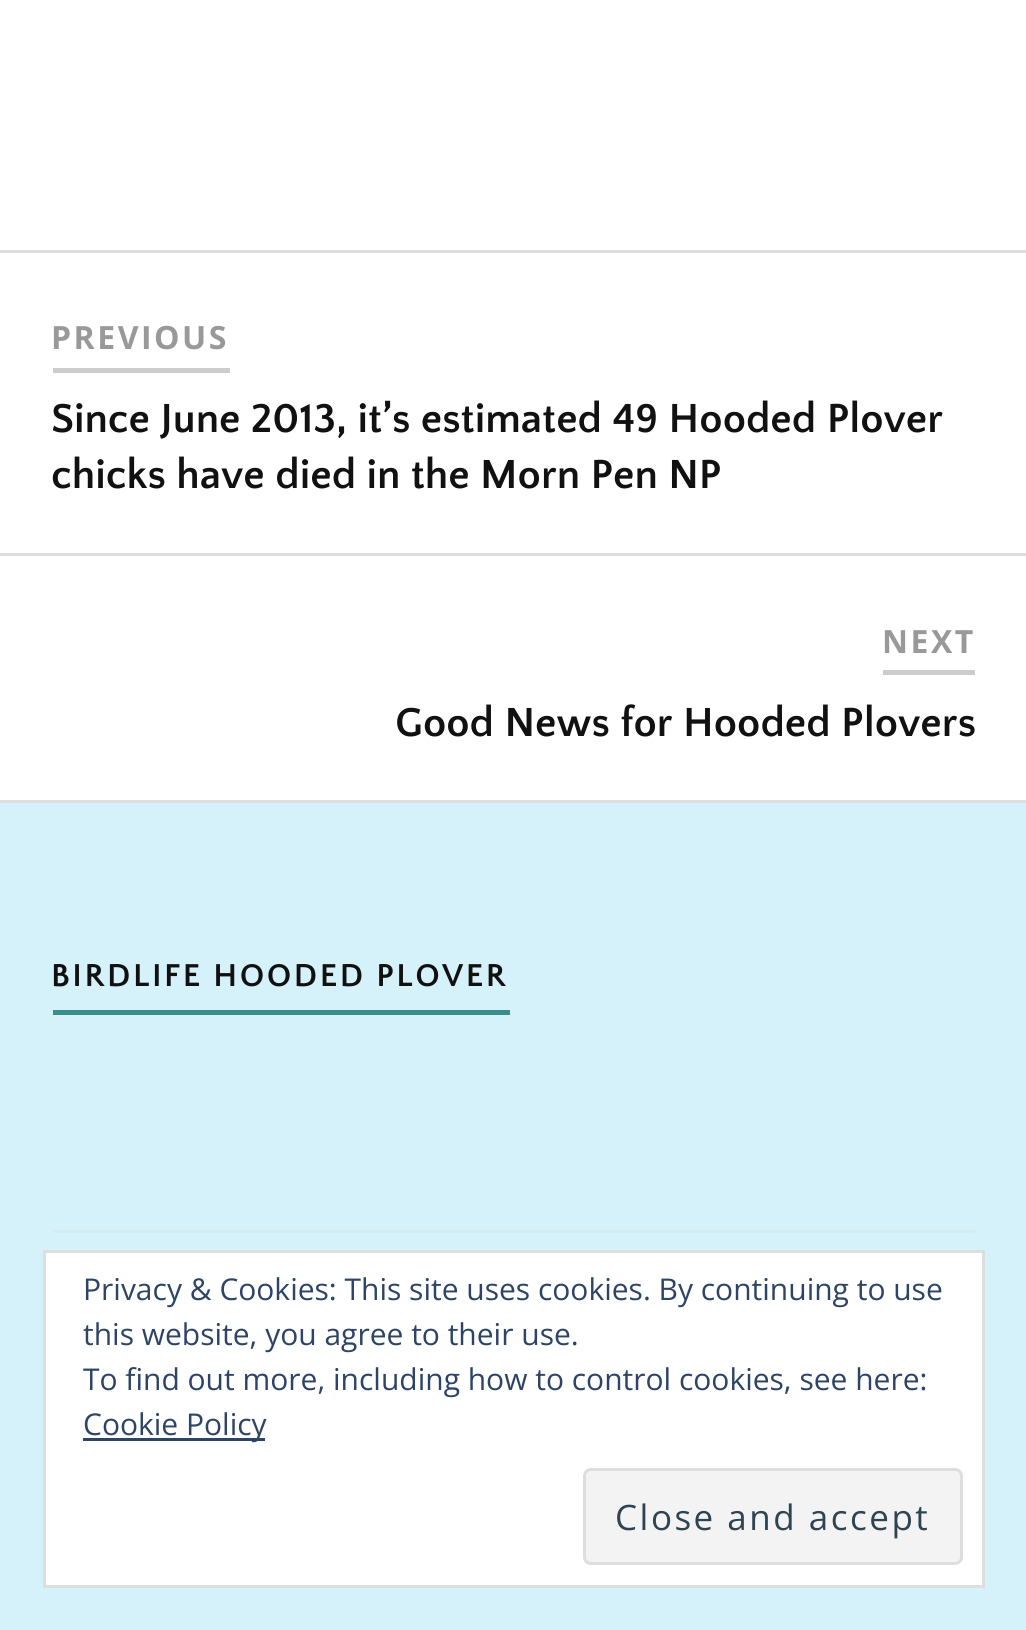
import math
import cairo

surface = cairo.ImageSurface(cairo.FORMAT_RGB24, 1026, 1630)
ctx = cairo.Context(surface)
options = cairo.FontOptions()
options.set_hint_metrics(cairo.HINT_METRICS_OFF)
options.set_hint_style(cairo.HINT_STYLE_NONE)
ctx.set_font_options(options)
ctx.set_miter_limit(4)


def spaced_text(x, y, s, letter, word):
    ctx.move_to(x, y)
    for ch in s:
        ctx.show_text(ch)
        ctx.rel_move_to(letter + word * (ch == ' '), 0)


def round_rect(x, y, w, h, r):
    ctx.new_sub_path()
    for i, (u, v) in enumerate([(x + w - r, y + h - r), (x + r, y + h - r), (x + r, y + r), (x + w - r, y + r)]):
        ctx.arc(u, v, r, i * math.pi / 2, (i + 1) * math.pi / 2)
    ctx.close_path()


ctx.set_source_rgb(0.835, 0.945, 0.98)
ctx.paint()
ctx.set_source_rgb(1, 1, 1)
ctx.rectangle(0, 0, 1026, 250)
ctx.fill()
ctx.rectangle(0, 253, 1026, 547)
ctx.fill()
ctx.set_source_rgb(0.867, 0.867, 0.867)
ctx.rectangle(0, 250, 1026, 3)
ctx.fill()
ctx.rectangle(0, 800, 1026, 3)
ctx.fill()
ctx.set_source_rgb(0.8, 0.8, 0.8)
ctx.rectangle(53, 368, 177, 5)
ctx.fill()
ctx.select_font_face("Open Sans", cairo.FONT_SLANT_NORMAL, cairo.FONT_WEIGHT_BOLD)
ctx.set_font_size(32)
ctx.set_source_rgb(0.6, 0.6, 0.6)
spaced_text(51, 349, "PREVIOUS", 2.5, 0)
ctx.select_font_face("Quattrocento Sans", cairo.FONT_SLANT_NORMAL, cairo.FONT_WEIGHT_BOLD)
ctx.set_font_size(42.5)
ctx.set_source_rgb(0.067, 0.067, 0.067)
ctx.move_to(51, 432)
ctx.show_text("Since June 2013, it’s estimated 49 Hooded Plover")
ctx.move_to(51, 488)
ctx.show_text("chicks have died in the Morn Pen NP")
ctx.set_source_rgb(0.867, 0.867, 0.867)
ctx.rectangle(0, 553, 1026, 3)
ctx.fill()
ctx.set_source_rgb(0.8, 0.8, 0.8)
ctx.rectangle(883, 670, 92, 5)
ctx.fill()
ctx.select_font_face("Open Sans", cairo.FONT_SLANT_NORMAL, cairo.FONT_WEIGHT_BOLD)
ctx.set_font_size(32)
ctx.set_source_rgb(0.6, 0.6, 0.6)
spaced_text(882, 653, "NEXT", 2.5, 0)
ctx.select_font_face("Quattrocento Sans", cairo.FONT_SLANT_NORMAL, cairo.FONT_WEIGHT_BOLD)
ctx.set_font_size(42.5)
ctx.set_source_rgb(0.067, 0.067, 0.067)
ctx.move_to(395, 736)
ctx.show_text("Good News for Hooded Plovers")
ctx.set_source_rgb(0.224, 0.553, 0.553)
ctx.rectangle(53, 1010, 457, 5)
ctx.fill()
ctx.set_font_size(33.1)
ctx.set_source_rgb(0.067, 0.067, 0.067)
spaced_text(51, 986, "BIRDLIFE HOODED PLOVER", 2.5, 0)
ctx.set_source_rgb(0.843, 0.922, 0.945)
ctx.rectangle(53, 1230, 922, 3)
ctx.fill()
ctx.set_source_rgb(1, 1, 1)
ctx.rectangle(44.5, 1251.5, 939, 335)
ctx.fill_preserve()
ctx.set_source_rgb(0.871, 0.871, 0.871)
ctx.set_line_width(3)
ctx.stroke()
ctx.select_font_face("Open Sans")
ctx.set_font_size(30)
ctx.set_source_rgb(0.18, 0.267, 0.404)
ctx.move_to(83, 1300)
ctx.show_text("Privacy & Cookies: This site uses cookies. By continuing to use")
ctx.move_to(83, 1345)
ctx.show_text("this website, you agree to their use.")
ctx.move_to(83, 1390)
ctx.show_text("To find out more, including how to control cookies, see here:")
ctx.rectangle(83, 1438, 182, 3)
ctx.fill()
ctx.move_to(83, 1435)
ctx.show_text("Cookie Policy")
ctx.set_source_rgb(0.953, 0.953, 0.953)
round_rect(584.5, 1469.5, 377, 94, 6.5)
ctx.fill_preserve()
ctx.set_source_rgb(0.871, 0.871, 0.871)
ctx.stroke()
ctx.set_font_size(35)
ctx.set_source_rgb(0.18, 0.267, 0.325)
spaced_text(615, 1530, "Close and accept", 2.5, 0)
surface.write_to_png("page.png")
